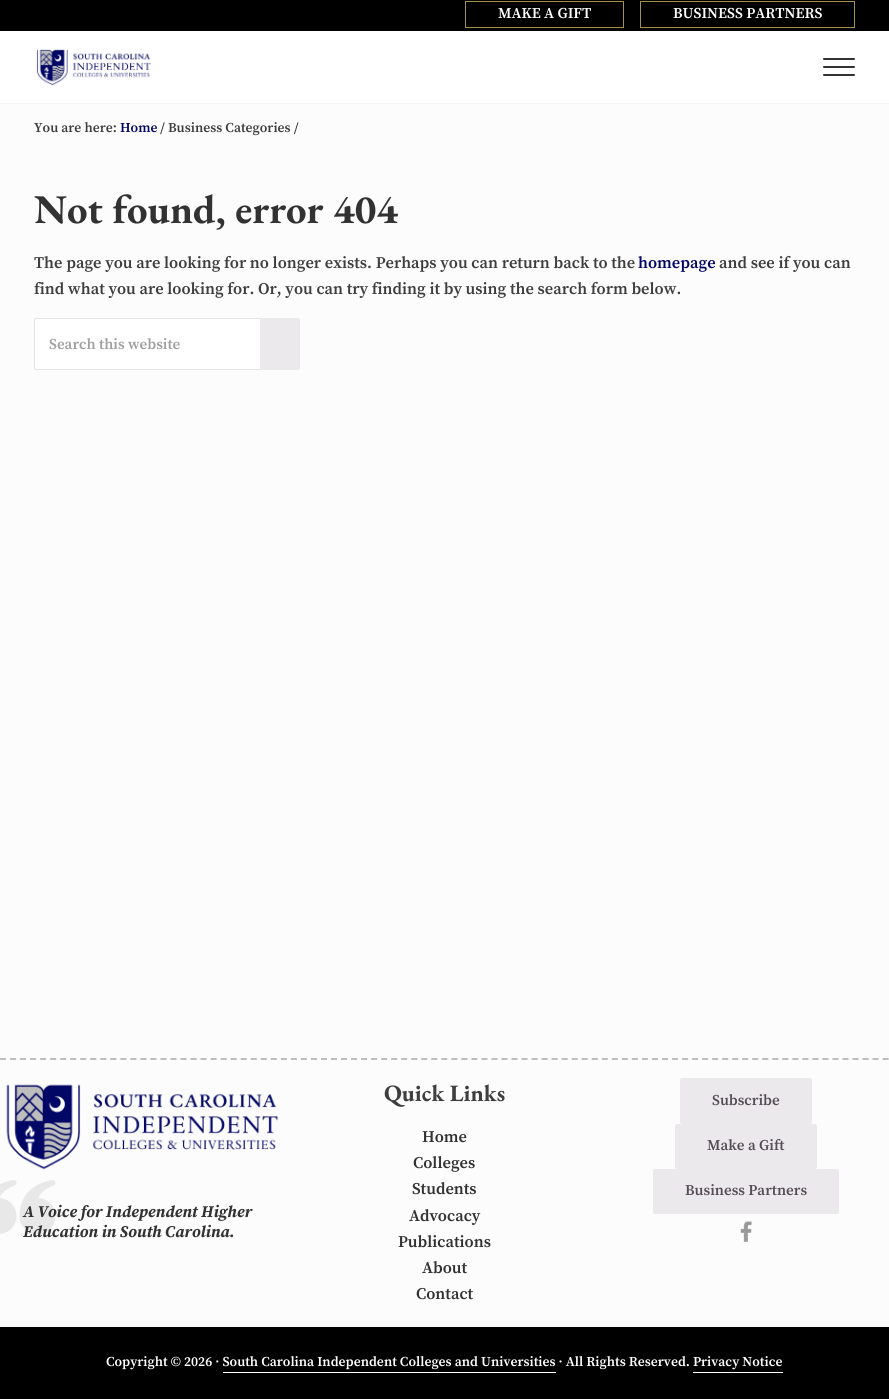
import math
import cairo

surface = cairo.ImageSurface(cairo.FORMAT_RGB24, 889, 1399)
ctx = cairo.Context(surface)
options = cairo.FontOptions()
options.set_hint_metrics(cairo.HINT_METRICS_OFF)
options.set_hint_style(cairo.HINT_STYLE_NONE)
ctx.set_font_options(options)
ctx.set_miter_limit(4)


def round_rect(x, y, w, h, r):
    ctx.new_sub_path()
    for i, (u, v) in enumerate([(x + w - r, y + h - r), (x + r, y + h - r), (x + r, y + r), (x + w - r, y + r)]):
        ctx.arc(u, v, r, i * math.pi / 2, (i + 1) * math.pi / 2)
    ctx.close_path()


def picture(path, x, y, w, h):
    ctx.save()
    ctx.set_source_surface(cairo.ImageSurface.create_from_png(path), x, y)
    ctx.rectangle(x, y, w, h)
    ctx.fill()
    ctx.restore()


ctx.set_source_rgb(0.988, 0.988, 0.988)
ctx.paint()
ctx.set_source_rgb(0, 0, 0)
ctx.rectangle(0, 0, 889, 31)
ctx.fill()
ctx.rectangle(465.5, 1.5, 158, 26)
ctx.set_source_rgb(0.639, 0.569, 0.278)
ctx.set_line_width(1)
ctx.stroke()
ctx.select_font_face("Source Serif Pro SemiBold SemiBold")
ctx.set_font_size(15)
ctx.set_source_rgb(1, 1, 1)
ctx.move_to(498, 18)
ctx.show_text("MAKE A GIFT")
ctx.rectangle(640.5, 1.5, 214, 26)
ctx.set_source_rgb(0.639, 0.569, 0.278)
ctx.stroke()
ctx.set_source_rgb(1, 1, 1)
ctx.move_to(673, 18)
ctx.show_text("BUSINESS PARTNERS")
ctx.rectangle(0, 31, 889, 72)
ctx.fill()
ctx.set_source_rgb(0.953, 0.953, 0.957)
ctx.rectangle(0, 103, 889, 1)
ctx.fill()
picture("img1.png", 36, 49, 116, 37)
ctx.set_source_rgb(0.196, 0.196, 0.196)
round_rect(823, 66, 32, 2, 1)
ctx.fill()
round_rect(823, 58, 32, 2, 1)
ctx.fill()
round_rect(823, 74, 32, 2, 1)
ctx.fill()
ctx.set_font_size(13.6)
ctx.set_source_rgb(0.243, 0.243, 0.243)
ctx.move_to(34, 132)
ctx.show_text("You are here:")
ctx.set_source_rgb(0.008, 0.027, 0.396)
ctx.move_to(120, 132)
ctx.show_text("Home")
ctx.set_source_rgb(0.243, 0.243, 0.243)
ctx.move_to(160, 132)
ctx.show_text("/ Business Categories /")
ctx.select_font_face("EB Garamond", cairo.FONT_SLANT_NORMAL, cairo.FONT_WEIGHT_BOLD)
ctx.set_font_size(40.75)
ctx.set_source_rgb(0.196, 0.196, 0.196)
ctx.move_to(34, 223)
ctx.show_text("Not found, error 404")
ctx.select_font_face("Source Serif Pro SemiBold SemiBold")
ctx.set_font_size(16.35)
ctx.set_source_rgb(0.243, 0.243, 0.243)
ctx.move_to(34, 268)
ctx.show_text("The page you are looking for no longer exists. Perhaps you can return back to the")
ctx.set_source_rgb(0.008, 0.027, 0.396)
ctx.move_to(638, 268)
ctx.show_text("homepage")
ctx.set_source_rgb(0.243, 0.243, 0.243)
ctx.move_to(719, 268)
ctx.show_text("and see if you can")
ctx.move_to(34, 294)
ctx.show_text("find what you are looking for. Or, you can try finding it by using the search form below.")
ctx.set_source_rgb(1, 1, 1)
round_rect(34.5, 318.5, 247, 51, 1.5)
ctx.fill_preserve()
ctx.set_source_rgb(0.89, 0.89, 0.89)
ctx.stroke()
ctx.set_font_size(15)
ctx.set_source_rgb(0.624, 0.624, 0.624)
ctx.move_to(49, 349)
ctx.show_text("Search this website")
ctx.set_source_rgb(0.922, 0.914, 0.922)
round_rect(260, 318, 40, 52, 2)
ctx.fill()
ctx.new_path()
ctx.move_to(0, 1059)
ctx.line_to(889, 1059)
ctx.set_source_rgb(0.741, 0.741, 0.741)
ctx.set_line_width(2)
ctx.set_dash([6, 4.03])
ctx.stroke()
ctx.select_font_face("EB Garamond", cairo.FONT_SLANT_NORMAL, cairo.FONT_WEIGHT_BOLD)
ctx.set_font_size(23.5)
ctx.set_source_rgb(0.243, 0.243, 0.243)
ctx.move_to(384, 1101)
ctx.show_text("Quick Links")
ctx.select_font_face("Source Serif Pro SemiBold SemiBold")
ctx.set_font_size(16.35)
ctx.set_source_rgb(0.196, 0.196, 0.196)
ctx.move_to(422, 1142)
ctx.show_text("Home")
ctx.move_to(413, 1168)
ctx.show_text("Colleges")
ctx.move_to(412, 1194)
ctx.show_text("Students")
ctx.move_to(409, 1221)
ctx.show_text("Advocacy")
ctx.move_to(398, 1247)
ctx.show_text("Publications")
ctx.move_to(422, 1273)
ctx.show_text("About")
ctx.move_to(416, 1299)
ctx.show_text("Contact")
ctx.set_source_rgb(0.922, 0.914, 0.922)
round_rect(680, 1078, 132, 46, 2)
ctx.fill()
ctx.set_font_size(15)
ctx.set_source_rgb(0.337, 0.306, 0.337)
ctx.move_to(712, 1105)
ctx.show_text("Subscribe")
ctx.set_source_rgb(0.922, 0.914, 0.922)
round_rect(675, 1124, 142, 45, 2)
ctx.fill()
ctx.set_source_rgb(0.337, 0.306, 0.337)
ctx.move_to(707, 1150)
ctx.show_text("Make a Gift")
ctx.set_source_rgb(0.922, 0.914, 0.922)
round_rect(653, 1169, 186, 45, 2)
ctx.fill()
ctx.set_source_rgb(0.337, 0.306, 0.337)
ctx.move_to(685, 1195)
ctx.show_text("Business Partners")
picture("img2.png", 740, 1221, 12, 21)
picture("img3.png", 6, 1084, 272, 86)
picture("img4.png", 0, 1180, 56, 54)
ctx.select_font_face("Source Serif Pro", cairo.FONT_SLANT_ITALIC, cairo.FONT_WEIGHT_BOLD)
ctx.set_font_size(16.35)
ctx.set_source_rgb(0.196, 0.196, 0.196)
ctx.move_to(23, 1217)
ctx.show_text("A Voice for Independent Higher")
ctx.move_to(23, 1237)
ctx.show_text("Education in South Carolina.")
ctx.set_source_rgb(0, 0, 0)
ctx.rectangle(0, 1327, 889, 72)
ctx.fill()
ctx.select_font_face("Source Serif Pro SemiBold SemiBold")
ctx.set_font_size(13.6)
ctx.set_source_rgb(1, 1, 1)
ctx.move_to(106, 1366)
ctx.show_text("Copyright © 2026 · South Carolina Independent Colleges and Universities · All Rights Reserved. Privacy Notice")
ctx.rectangle(223, 1372, 333, 1)
ctx.fill()
ctx.rectangle(693, 1372, 90, 1)
ctx.fill()
surface.write_to_png("page.png")
